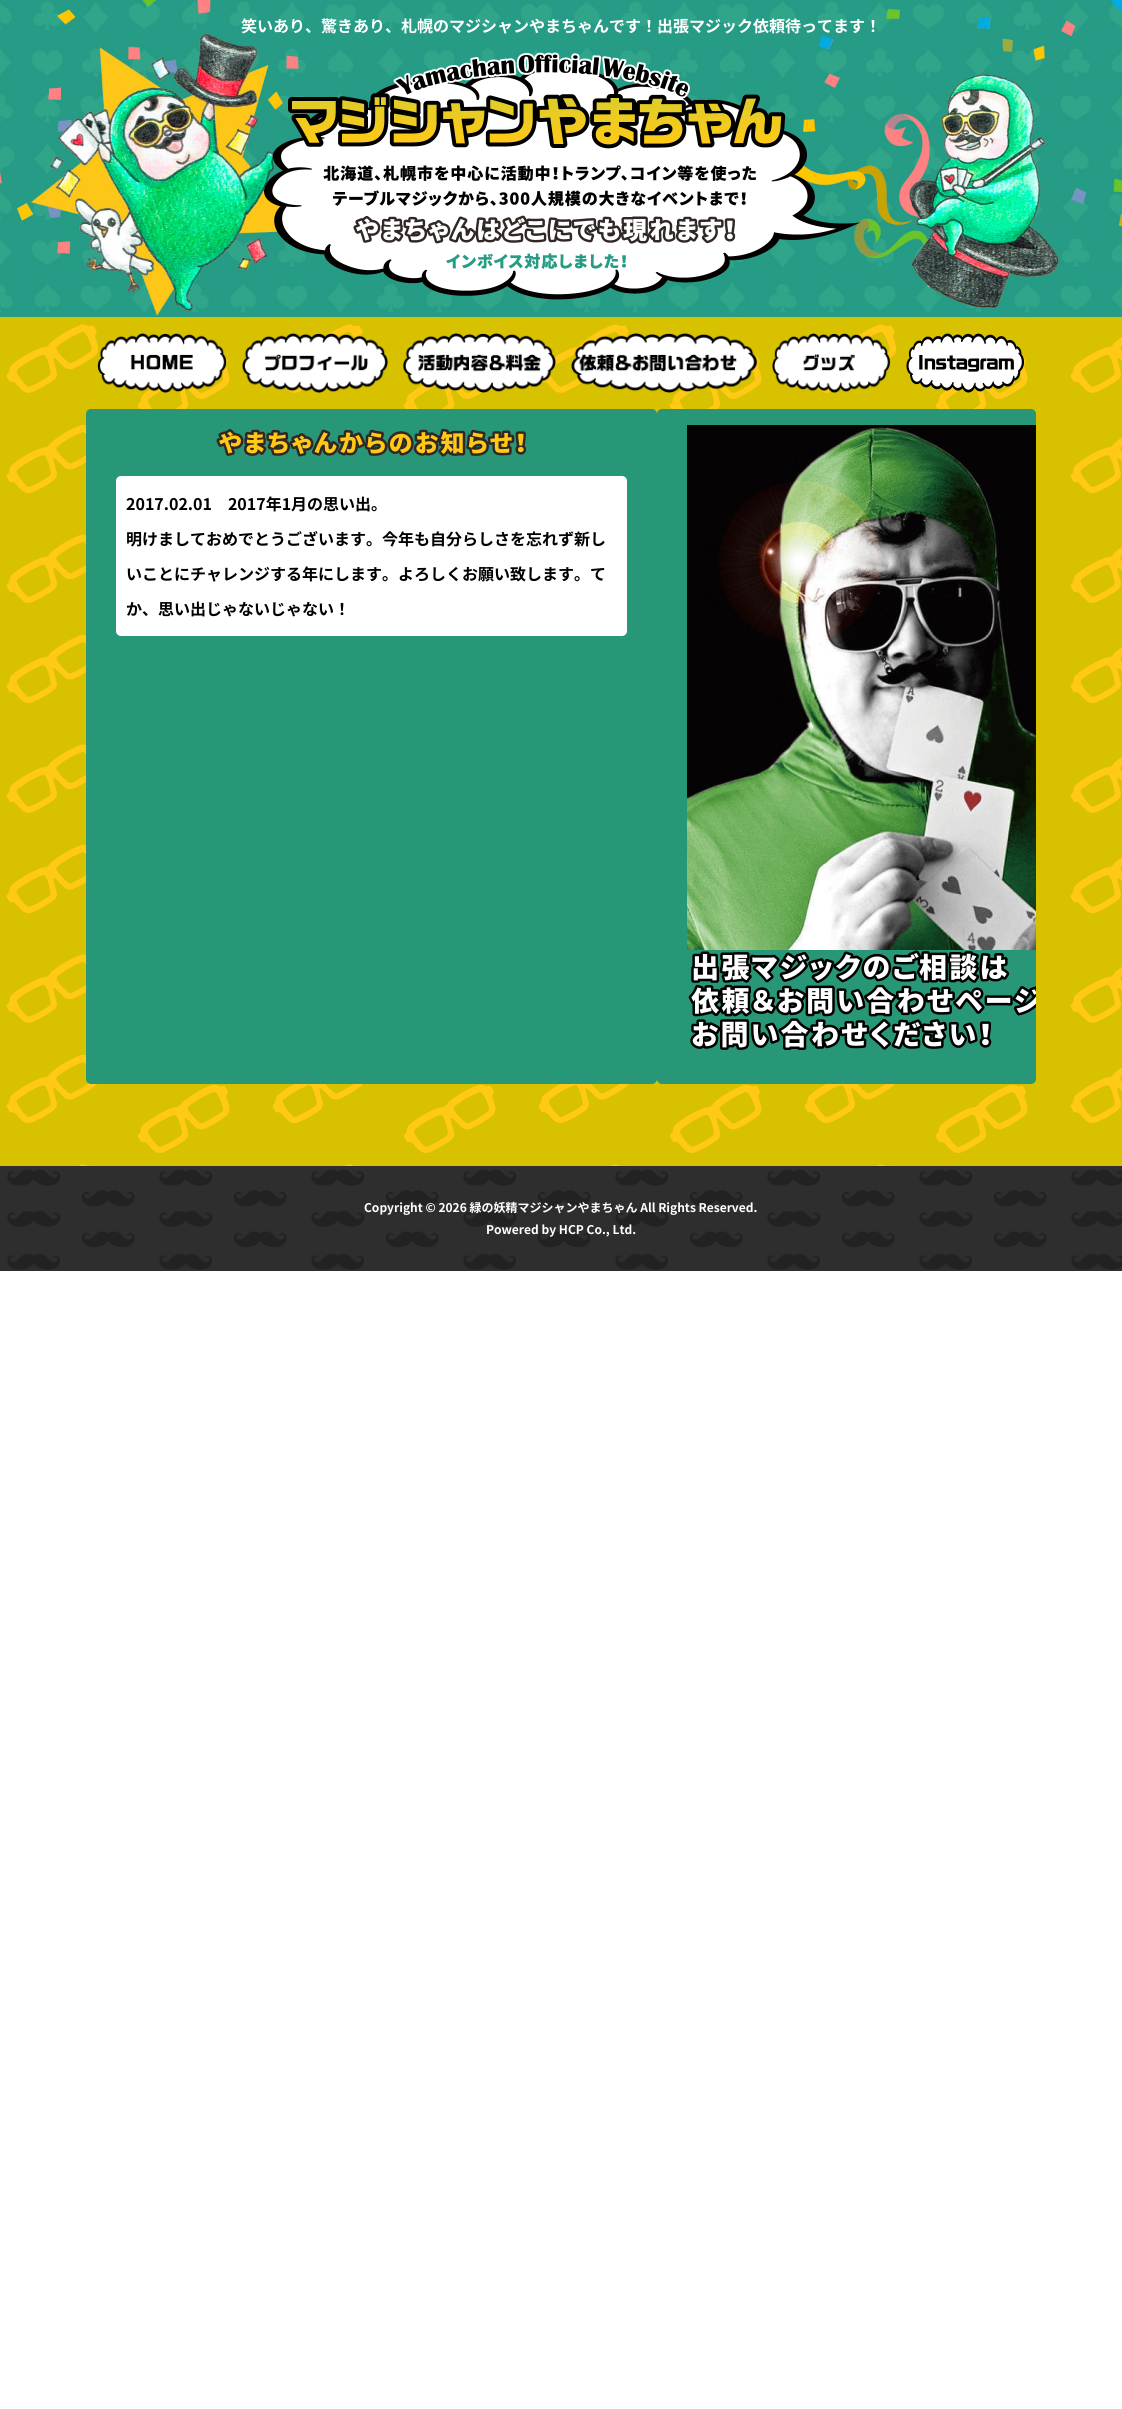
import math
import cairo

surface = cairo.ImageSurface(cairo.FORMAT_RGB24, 1122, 2409)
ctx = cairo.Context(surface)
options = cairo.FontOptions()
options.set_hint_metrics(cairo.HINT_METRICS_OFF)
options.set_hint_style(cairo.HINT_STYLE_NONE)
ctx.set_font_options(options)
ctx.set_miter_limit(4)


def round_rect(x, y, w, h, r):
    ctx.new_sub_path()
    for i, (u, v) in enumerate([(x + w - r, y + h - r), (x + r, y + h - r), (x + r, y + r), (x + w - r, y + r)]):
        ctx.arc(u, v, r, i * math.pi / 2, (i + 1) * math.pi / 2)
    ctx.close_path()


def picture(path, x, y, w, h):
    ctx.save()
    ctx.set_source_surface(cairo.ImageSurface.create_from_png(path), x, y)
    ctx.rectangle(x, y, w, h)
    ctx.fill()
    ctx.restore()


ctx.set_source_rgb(1, 1, 1)
ctx.paint()
picture("img1.png", 0, 0, 1122, 317)
ctx.select_font_face("Noto Sans JP", cairo.FONT_SLANT_NORMAL, cairo.FONT_WEIGHT_BOLD)
ctx.set_font_size(16)
ctx.set_source_rgb(1, 1, 1)
ctx.move_to(241, 32)
ctx.show_text("笑いあり、驚きあり、札幌のマジシャンやまちゃんです！出張マジック依頼待ってます！")
picture("img2.png", 264, 52, 597, 248)
picture("img3.png", 0, 317, 1122, 849)
picture("img4.png", 97, 333, 130, 60)
picture("img5.png", 242, 333, 146, 60)
picture("img6.png", 403, 333, 153, 60)
picture("img7.png", 571, 333, 187, 60)
picture("img8.png", 772, 333, 119, 60)
picture("img9.png", 906, 333, 118, 60)
ctx.set_source_rgb(0.157, 0.592, 0.471)
round_rect(86, 409, 571, 675, 5)
ctx.fill()
picture("img10.png", 216, 428, 311, 29)
ctx.set_source_rgb(1, 1, 1)
round_rect(116, 476, 511, 160, 5)
ctx.fill()
ctx.set_source_rgb(0, 0, 0)
ctx.move_to(126, 510)
ctx.show_text("2017.02.01　2017年1月の思い出。")
ctx.move_to(126, 545)
ctx.show_text("明けましておめでとうございます。今年も自分らしさを忘れず新し")
ctx.move_to(126, 580)
ctx.show_text("いことにチャレンジする年にします。よろしくお願い致します。て")
ctx.move_to(126, 615)
ctx.show_text("か、思い出じゃないじゃない！")
ctx.set_source_rgb(0.157, 0.592, 0.471)
round_rect(657, 409, 379, 675, 5)
ctx.fill()
picture("img11.png", 687, 425, 349, 525)
picture("img12.png", 688, 950, 348, 100)
picture("img13.png", 0, 1166, 1122, 105)
ctx.set_font_size(12)
ctx.set_source_rgb(1, 1, 1)
ctx.move_to(364, 1212)
ctx.show_text("Copyright © 2026 緑の妖精マジシャンやまちゃん All Rights Reserved.")
ctx.move_to(486, 1234)
ctx.show_text("Powered by HCP Co., Ltd.")
surface.write_to_png("page.png")
